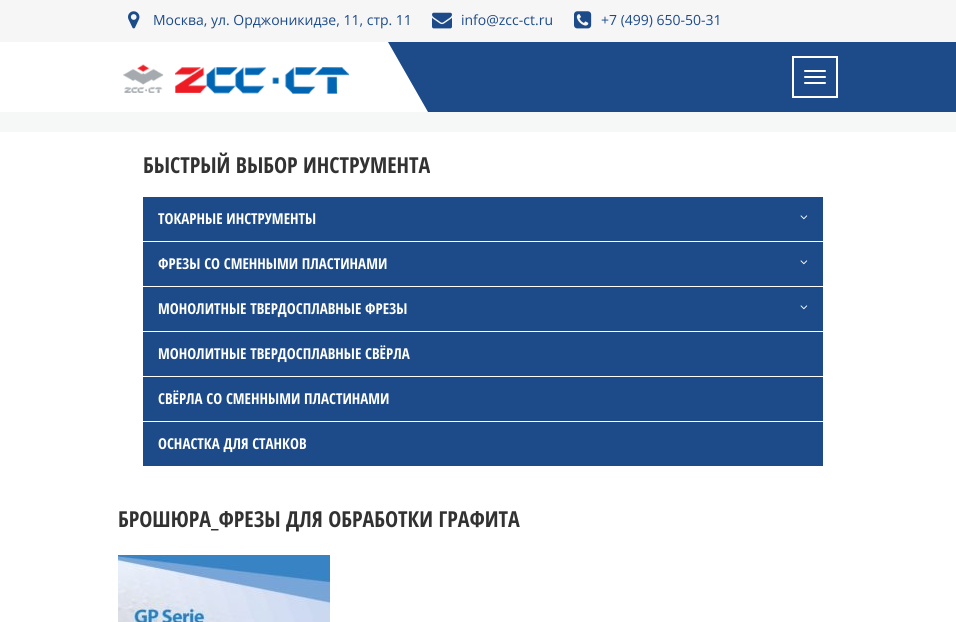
import math
import cairo

surface = cairo.ImageSurface(cairo.FORMAT_RGB24, 956, 622)
ctx = cairo.Context(surface)
options = cairo.FontOptions()
options.set_hint_metrics(cairo.HINT_METRICS_OFF)
options.set_hint_style(cairo.HINT_STYLE_NONE)
ctx.set_font_options(options)
ctx.set_miter_limit(4)


def round_rect(x, y, w, h, r):
    ctx.new_sub_path()
    for i, (u, v) in enumerate([(x + w - r, y + h - r), (x + r, y + h - r), (x + r, y + r), (x + w - r, y + r)]):
        ctx.arc(u, v, r, i * math.pi / 2, (i + 1) * math.pi / 2)
    ctx.close_path()


def picture(path, x, y, w, h):
    ctx.save()
    ctx.set_source_surface(cairo.ImageSurface.create_from_png(path), x, y)
    ctx.rectangle(x, y, w, h)
    ctx.fill()
    ctx.restore()


ctx.set_source_rgb(1, 1, 1)
ctx.paint()
ctx.set_source_rgb(0.961, 0.961, 0.961)
ctx.rectangle(0, 0, 956, 42)
ctx.fill()
picture("img1.png", 128, 11, 12, 18)
ctx.select_font_face("Open Sans")
ctx.set_font_size(14)
ctx.set_source_rgb(0.114, 0.294, 0.537)
ctx.move_to(153, 25)
ctx.show_text("Москва, ул. Орджоникидзе, 11, стр. 11")
picture("img2.png", 432, 12, 20, 17)
ctx.move_to(461, 25)
ctx.show_text("info@zcc-ct.ru")
picture("img3.png", 574, 11, 18, 18)
ctx.move_to(601, 25)
ctx.show_text("+7 (499) 650-50-31")
ctx.rectangle(388, 42, 568, 70)
ctx.fill()
ctx.set_source_rgb(1, 1, 1)
ctx.new_path()
ctx.move_to(196, 42)
ctx.line_to(388, 42)
ctx.line_to(428, 112)
ctx.line_to(236, 112)
ctx.close_path()
ctx.fill()
picture("img4.png", 123, 64, 227, 30)
ctx.rectangle(793, 57, 44, 40)
ctx.stroke()
round_rect(804, 70, 22, 2, 1)
ctx.fill()
round_rect(804, 76, 22, 2, 1)
ctx.fill()
round_rect(804, 82, 22, 2, 1)
ctx.fill()
ctx.set_source_rgb(0.961, 0.965, 0.965)
ctx.rectangle(0, 112, 956, 20)
ctx.fill()
ctx.select_font_face("Open Sans Condensed", cairo.FONT_SLANT_NORMAL, cairo.FONT_WEIGHT_BOLD)
ctx.set_font_size(22)
ctx.set_source_rgb(0.2, 0.196, 0.196)
ctx.move_to(143, 173)
ctx.show_text("БЫСТРЫЙ ВЫБОР ИНСТРУМЕНТА")
ctx.set_source_rgb(0.114, 0.294, 0.537)
ctx.rectangle(143, 197, 680, 269)
ctx.fill()
ctx.set_font_size(15)
ctx.set_source_rgb(1, 1, 1)
ctx.move_to(158, 224)
ctx.show_text("ТОКАРНЫЕ ИНСТРУМЕНТЫ")
picture("img5.png", 800, 215, 8, 5)
ctx.rectangle(143, 241, 680, 1)
ctx.fill()
ctx.move_to(158, 269)
ctx.show_text("ФРЕЗЫ СО СМЕННЫМИ ПЛАСТИНАМИ")
picture("img5.png", 800, 260, 8, 5)
ctx.rectangle(143, 286, 680, 1)
ctx.fill()
ctx.move_to(158, 314)
ctx.show_text("МОНОЛИТНЫЕ ТВЕРДОСПЛАВНЫЕ ФРЕЗЫ")
picture("img5.png", 800, 305, 8, 5)
ctx.rectangle(143, 331, 680, 1)
ctx.fill()
ctx.move_to(158, 359)
ctx.show_text("МОНОЛИТНЫЕ ТВЕРДОСПЛАВНЫЕ СВЁРЛА")
ctx.rectangle(143, 376, 680, 1)
ctx.fill()
ctx.move_to(158, 404)
ctx.show_text("СВЁРЛА СО СМЕННЫМИ ПЛАСТИНАМИ")
ctx.rectangle(143, 421, 680, 1)
ctx.fill()
ctx.move_to(158, 449)
ctx.show_text("ОСНАСТКА ДЛЯ СТАНКОВ")
ctx.set_font_size(22)
ctx.set_source_rgb(0.2, 0.196, 0.196)
ctx.move_to(118, 527)
ctx.show_text("БРОШЮРА_ФРЕЗЫ ДЛЯ ОБРАБОТКИ ГРАФИТА")
picture("img6.png", 118, 555, 212, 67)
surface.write_to_png("page.png")
